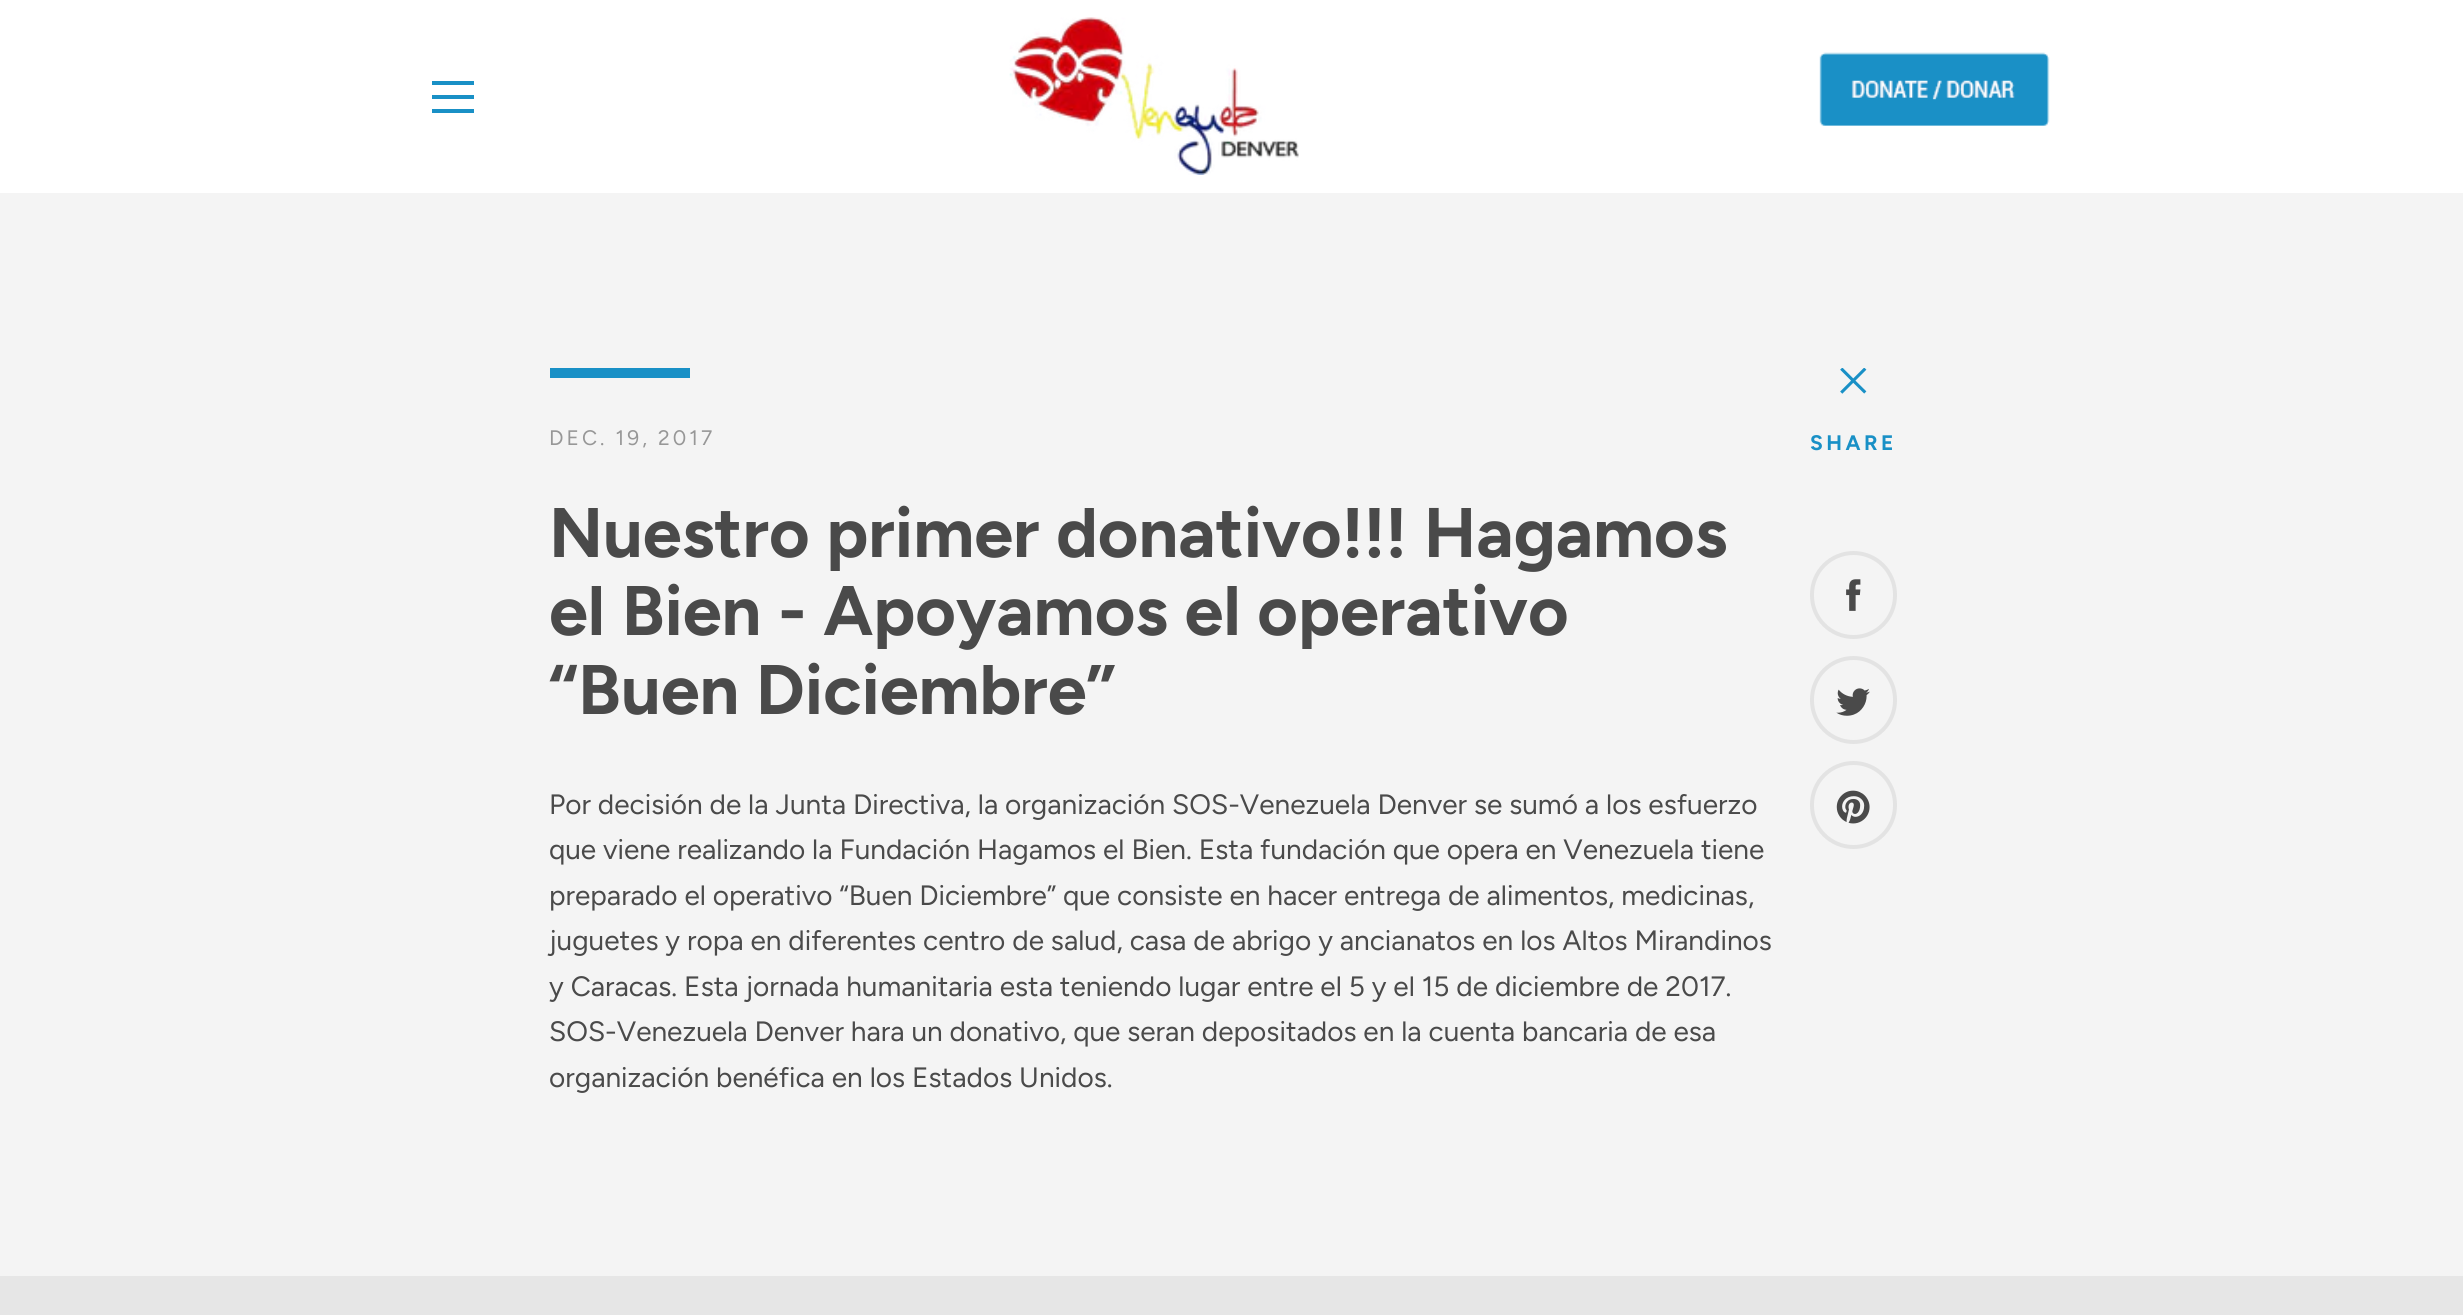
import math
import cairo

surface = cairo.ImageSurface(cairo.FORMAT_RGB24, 2463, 1315)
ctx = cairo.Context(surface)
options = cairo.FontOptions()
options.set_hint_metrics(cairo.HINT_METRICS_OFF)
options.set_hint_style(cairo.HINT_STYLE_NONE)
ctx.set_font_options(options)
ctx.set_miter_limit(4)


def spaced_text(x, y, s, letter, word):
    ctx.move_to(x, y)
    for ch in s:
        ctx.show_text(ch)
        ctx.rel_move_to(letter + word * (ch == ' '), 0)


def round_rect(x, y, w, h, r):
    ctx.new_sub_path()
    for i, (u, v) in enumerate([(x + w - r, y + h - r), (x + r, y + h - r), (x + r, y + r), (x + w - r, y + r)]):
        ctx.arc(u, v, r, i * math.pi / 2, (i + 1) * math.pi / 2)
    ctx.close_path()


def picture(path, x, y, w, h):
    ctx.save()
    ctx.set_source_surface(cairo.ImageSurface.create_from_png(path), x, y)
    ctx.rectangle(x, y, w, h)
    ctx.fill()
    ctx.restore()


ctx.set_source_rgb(0.957, 0.957, 0.957)
ctx.paint()
ctx.set_source_rgb(1, 1, 1)
ctx.rectangle(0, 0, 2463, 193)
ctx.fill()
ctx.set_source_rgb(0.098, 0.565, 0.776)
ctx.rectangle(432, 81, 42, 4)
ctx.fill()
ctx.rectangle(432, 95, 42, 4)
ctx.fill()
ctx.rectangle(432, 109, 42, 4)
ctx.fill()
picture("img1.png", 1009, 17, 290, 158)
picture("img2.png", 1819, 52, 231, 74)
ctx.rectangle(550, 368, 140, 10)
ctx.fill()
ctx.select_font_face("Figtree")
ctx.set_font_size(21)
ctx.set_source_rgb(0.592, 0.592, 0.592)
spaced_text(549, 445, "DEC. 19, 2017", 3, 0)
ctx.select_font_face("Figtree", cairo.FONT_SLANT_NORMAL, cairo.FONT_WEIGHT_BOLD)
ctx.set_font_size(70)
ctx.set_source_rgb(0.29, 0.29, 0.29)
ctx.move_to(549, 557)
ctx.show_text("Nuestro primer donativo!!! Hagamos")
ctx.move_to(549, 635)
ctx.show_text("el Bien - Apoyamos el operativo")
ctx.move_to(549, 714)
ctx.show_text("“Buen Diciembre”")
ctx.select_font_face("Figtree")
ctx.set_font_size(28)
ctx.move_to(549, 814)
ctx.show_text("Por decisión de la Junta Directiva, la organización SOS-Venezuela Denver se sumó a los esfuerzo")
ctx.move_to(549, 859)
ctx.show_text("que viene realizando la Fundación Hagamos el Bien. Esta fundación que opera en Venezuela tiene")
ctx.move_to(549, 905)
ctx.show_text("preparado el operativo “Buen Diciembre” que consiste en hacer entrega de alimentos, medicinas,")
ctx.move_to(549, 950)
ctx.show_text("juguetes y ropa en diferentes centro de salud, casa de abrigo y ancianatos en los Altos Mirandinos")
ctx.move_to(549, 996)
ctx.show_text("y Caracas. Esta jornada humanitaria esta teniendo lugar entre el 5 y el 15 de diciembre de 2017.")
ctx.move_to(549, 1041)
ctx.show_text("SOS-Venezuela Denver hara un donativo, que seran depositados en la cuenta bancaria de esa")
ctx.move_to(549, 1087)
ctx.show_text("organización benéfica en los Estados Unidos.")
picture("img3.png", 1840, 368, 27, 26)
ctx.select_font_face("Figtree", cairo.FONT_SLANT_NORMAL, cairo.FONT_WEIGHT_BOLD)
ctx.set_font_size(21)
ctx.set_source_rgb(0.098, 0.565, 0.776)
spaced_text(1810, 450, "SHARE", 3.5, 0)
round_rect(1812, 553, 83, 84, 41.5)
ctx.set_source_rgb(0.89, 0.89, 0.89)
ctx.set_line_width(4)
ctx.stroke()
picture("img4.png", 1846, 579, 15, 32)
round_rect(1812, 658, 83, 84, 41.5)
ctx.stroke()
picture("img5.png", 1836, 688, 34, 28)
round_rect(1812, 763, 83, 84, 41.5)
ctx.stroke()
picture("img6.png", 1836, 790, 34, 34)
ctx.set_source_rgb(0.902, 0.902, 0.902)
ctx.rectangle(0, 1276, 2463, 39)
ctx.fill()
surface.write_to_png("page.png")
